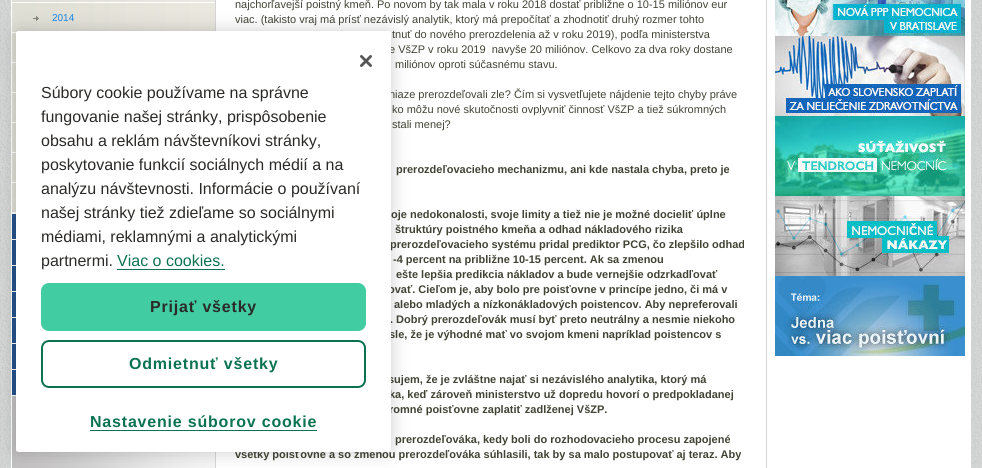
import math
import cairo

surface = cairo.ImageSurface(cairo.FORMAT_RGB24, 982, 468)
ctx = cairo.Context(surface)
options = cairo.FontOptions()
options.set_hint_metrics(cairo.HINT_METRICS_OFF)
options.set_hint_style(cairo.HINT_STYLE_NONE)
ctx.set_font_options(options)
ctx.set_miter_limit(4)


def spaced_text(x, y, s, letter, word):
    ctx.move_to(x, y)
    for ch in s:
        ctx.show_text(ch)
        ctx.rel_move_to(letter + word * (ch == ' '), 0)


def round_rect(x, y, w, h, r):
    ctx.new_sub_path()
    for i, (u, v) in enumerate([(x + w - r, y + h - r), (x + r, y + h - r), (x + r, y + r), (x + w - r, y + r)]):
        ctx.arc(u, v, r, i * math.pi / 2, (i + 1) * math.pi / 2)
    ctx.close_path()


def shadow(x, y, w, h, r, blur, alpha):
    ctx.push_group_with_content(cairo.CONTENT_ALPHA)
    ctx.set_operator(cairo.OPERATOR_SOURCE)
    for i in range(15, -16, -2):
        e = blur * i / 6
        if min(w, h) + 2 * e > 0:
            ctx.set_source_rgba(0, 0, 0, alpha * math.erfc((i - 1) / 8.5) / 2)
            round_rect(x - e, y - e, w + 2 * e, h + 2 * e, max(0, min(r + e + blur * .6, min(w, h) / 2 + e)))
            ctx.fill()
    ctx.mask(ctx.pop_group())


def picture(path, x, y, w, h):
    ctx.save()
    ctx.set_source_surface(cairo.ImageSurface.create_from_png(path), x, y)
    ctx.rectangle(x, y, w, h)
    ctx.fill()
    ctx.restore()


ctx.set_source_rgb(1, 1, 1)
ctx.paint()
picture("img1.png", 0, 0, 982, 468)
picture("img2.png", 11, 0, 960, 468)
ctx.set_source_rgb(1, 1, 1)
ctx.rectangle(12, 212, 4, 2)
ctx.fill()
picture("img3.png", 12, 0, 203, 2)
ctx.rectangle(12, 2, 203, 1)
ctx.fill()
picture("img4.png", 12, 3, 203, 29)
ctx.rectangle(12, 32, 5, 1)
ctx.fill()
picture("img5.png", 33, 16, 6, 5)
ctx.select_font_face("Liberation Sans")
ctx.set_font_size(10)
ctx.set_source_rgb(0.09, 0.529, 0.902)
ctx.move_to(52, 21)
ctx.show_text("2014")
picture("img6.png", 12, 33, 5, 29)
ctx.set_source_rgb(1, 1, 1)
ctx.rectangle(12, 62, 4, 1)
ctx.fill()
picture("img7.png", 12, 63, 4, 29)
ctx.rectangle(12, 92, 4, 1)
ctx.fill()
picture("img7.png", 12, 93, 4, 29)
ctx.rectangle(12, 122, 4, 1)
ctx.fill()
picture("img7.png", 12, 123, 4, 29)
ctx.rectangle(12, 152, 4, 1)
ctx.fill()
picture("img7.png", 12, 153, 4, 29)
ctx.rectangle(12, 182, 4, 1)
ctx.fill()
picture("img7.png", 12, 183, 4, 29)
picture("img8.png", 12, 214, 4, 25)
ctx.rectangle(12, 239, 4, 1)
ctx.fill()
picture("img8.png", 12, 240, 4, 25)
ctx.rectangle(12, 265, 4, 1)
ctx.fill()
picture("img8.png", 12, 266, 4, 25)
ctx.rectangle(12, 291, 4, 1)
ctx.fill()
picture("img8.png", 12, 292, 4, 25)
ctx.rectangle(12, 317, 4, 1)
ctx.fill()
picture("img8.png", 12, 318, 4, 25)
ctx.rectangle(12, 343, 4, 1)
ctx.fill()
picture("img8.png", 12, 344, 4, 25)
ctx.rectangle(12, 369, 4, 1)
ctx.fill()
picture("img8.png", 12, 370, 4, 25)
ctx.rectangle(12, 395, 4, 1)
ctx.fill()
ctx.set_font_size(11)
ctx.set_source_rgb(0.255, 0.267, 0.208)
ctx.move_to(235, 8)
ctx.show_text("najchorľavejší poistný kmeň. Po novom by tak mala v roku 2018 dostať približne o 10-15 miliónov eur")
ctx.move_to(235, 23)
ctx.show_text("viac. (takisto vraj má prísť nezávislý analytik, ktorý má prepočítať a zhodnotiť druhý rozmer tohto")
ctx.move_to(392, 38)
ctx.show_text("tnuť do nového prerozdelenia až v roku 2019), podľa ministerstva")
ctx.move_to(389, 53)
ctx.show_text("e VšZP v roku 2019  navyše 20 miliónov. Celkovo za dva roky dostane")
ctx.move_to(395, 68)
ctx.show_text("miliónov oproti súčasnému stavu.")
ctx.move_to(389, 98)
ctx.show_text("niaze prerozdeľovali zle? Čím si vysvetľujete nájdenie tejto chyby práve")
ctx.move_to(392, 113)
ctx.show_text("ko môžu nové skutočnosti ovplyvniť činnosť VšZP a tiež súkromných")
ctx.move_to(392, 128)
ctx.show_text("stali menej?")
ctx.select_font_face("Liberation Sans", cairo.FONT_SLANT_NORMAL, cairo.FONT_WEIGHT_BOLD)
ctx.move_to(396, 173)
ctx.show_text("prerozdeľovacieho mechanizmu, ani kde nastala chyba, preto je")
ctx.move_to(391, 218)
ctx.show_text("oje nedokonalosti, svoje limity a tiež nie je možné docieliť úplne")
ctx.move_to(395, 233)
ctx.show_text("štruktúry poistného kmeňa a odhad nákladového rizika")
ctx.move_to(390, 248)
ctx.show_text("prerozdeľovacieho systému pridal prediktor PCG, čo zlepšilo odhad")
ctx.move_to(393, 263)
ctx.show_text("-4 percent na približne 10-15 percent. Ak sa zmenou")
ctx.move_to(396, 278)
ctx.show_text("ešte lepšia predikcia nákladov a bude vernejšie odzrkadľovať")
ctx.move_to(388, 293)
ctx.show_text("ovať. Cieľom je, aby bolo pre poisťovne v princípe jedno, či má v")
ctx.move_to(394, 308)
ctx.show_text("alebo mladých a nízkonákladových poistencov. Aby nepreferovali")
ctx.move_to(390, 323)
ctx.show_text(". Dobrý prerozdeľovák musí byť preto neutrálny a nesmie niekoho")
ctx.move_to(389, 338)
ctx.show_text("sle, že je výhodné mať vo svojom kmeni napríklad poistencov s")
ctx.move_to(388, 383)
ctx.show_text("sujem, že je zvláštne najať si nezávislého analytika, ktorý má")
ctx.move_to(389, 398)
ctx.show_text("ka, keď zároveň ministerstvo už dopredu hovorí o predpokladanej")
ctx.move_to(389, 413)
ctx.show_text("romné poisťovne zaplatiť zadlženej VšZP.")
ctx.move_to(395, 443)
ctx.show_text("prerozdeľováka, kedy boli do rozhodovacieho procesu zapojené")
ctx.move_to(235, 458)
ctx.show_text("všetky poisťovne a so zmenou prerozdeľováka súhlasili, tak by sa malo postupovať aj teraz. Aby")
picture("img9.png", 775, 0, 190, 36)
picture("img10.png", 775, 36, 190, 80)
picture("img11.png", 775, 116, 190, 80)
picture("img12.png", 775, 196, 190, 80)
picture("img13.png", 775, 276, 190, 80)
ctx.set_source_rgb(0, 0, 0)
shadow(16, 31, 375, 421, 2.5, 9, 0.2)
ctx.set_source_rgb(1, 1, 1)
round_rect(16, 31, 375, 421, 2.5)
ctx.fill()
picture("img14.png", 360, 55, 12, 12)
ctx.select_font_face("Liberation Sans")
ctx.set_font_size(16)
ctx.set_source_rgb(0.169, 0.165, 0.157)
ctx.move_to(41, 98)
ctx.show_text("Súbory cookie používame na správne")
ctx.move_to(41, 122)
ctx.show_text("fungovanie našej stránky, prispôsobenie")
ctx.move_to(41, 146)
ctx.show_text("obsahu a reklám návštevníkovi stránky,")
ctx.move_to(41, 170)
ctx.show_text("poskytovanie funkcií sociálnych médií a na")
ctx.move_to(41, 194)
ctx.show_text("analýzu návštevnosti. Informácie o používaní")
ctx.move_to(41, 218)
ctx.show_text("našej stránky tiež zdieľame so sociálnymi")
ctx.move_to(41, 242)
ctx.show_text("médiami, reklamnými a analytickými")
ctx.move_to(41, 266)
ctx.show_text("partnermi.")
ctx.set_source_rgb(0.043, 0.451, 0.322)
ctx.move_to(117, 266)
ctx.show_text("Viac o cookies.")
ctx.rectangle(117, 269, 108, 1)
ctx.fill()
ctx.set_source_rgb(0.259, 0.8, 0.631)
round_rect(41.5, 283.5, 324, 47, 7.5)
ctx.fill_preserve()
ctx.set_line_width(1)
ctx.stroke()
ctx.select_font_face("Liberation Sans", cairo.FONT_SLANT_NORMAL, cairo.FONT_WEIGHT_BOLD)
ctx.set_source_rgb(0.169, 0.165, 0.157)
spaced_text(150, 312, "Prijať všetky", 0.8, 0)
round_rect(42, 341, 323, 46, 7)
ctx.set_source_rgb(0.043, 0.451, 0.322)
ctx.set_line_width(2)
ctx.stroke()
spaced_text(129, 369, "Odmietnuť všetky", 0.8, 0)
spaced_text(90, 427, "Nastavenie súborov cookie", 0.8, 0)
ctx.rectangle(90, 430, 227, 1)
ctx.fill()
surface.write_to_png("page.png")
